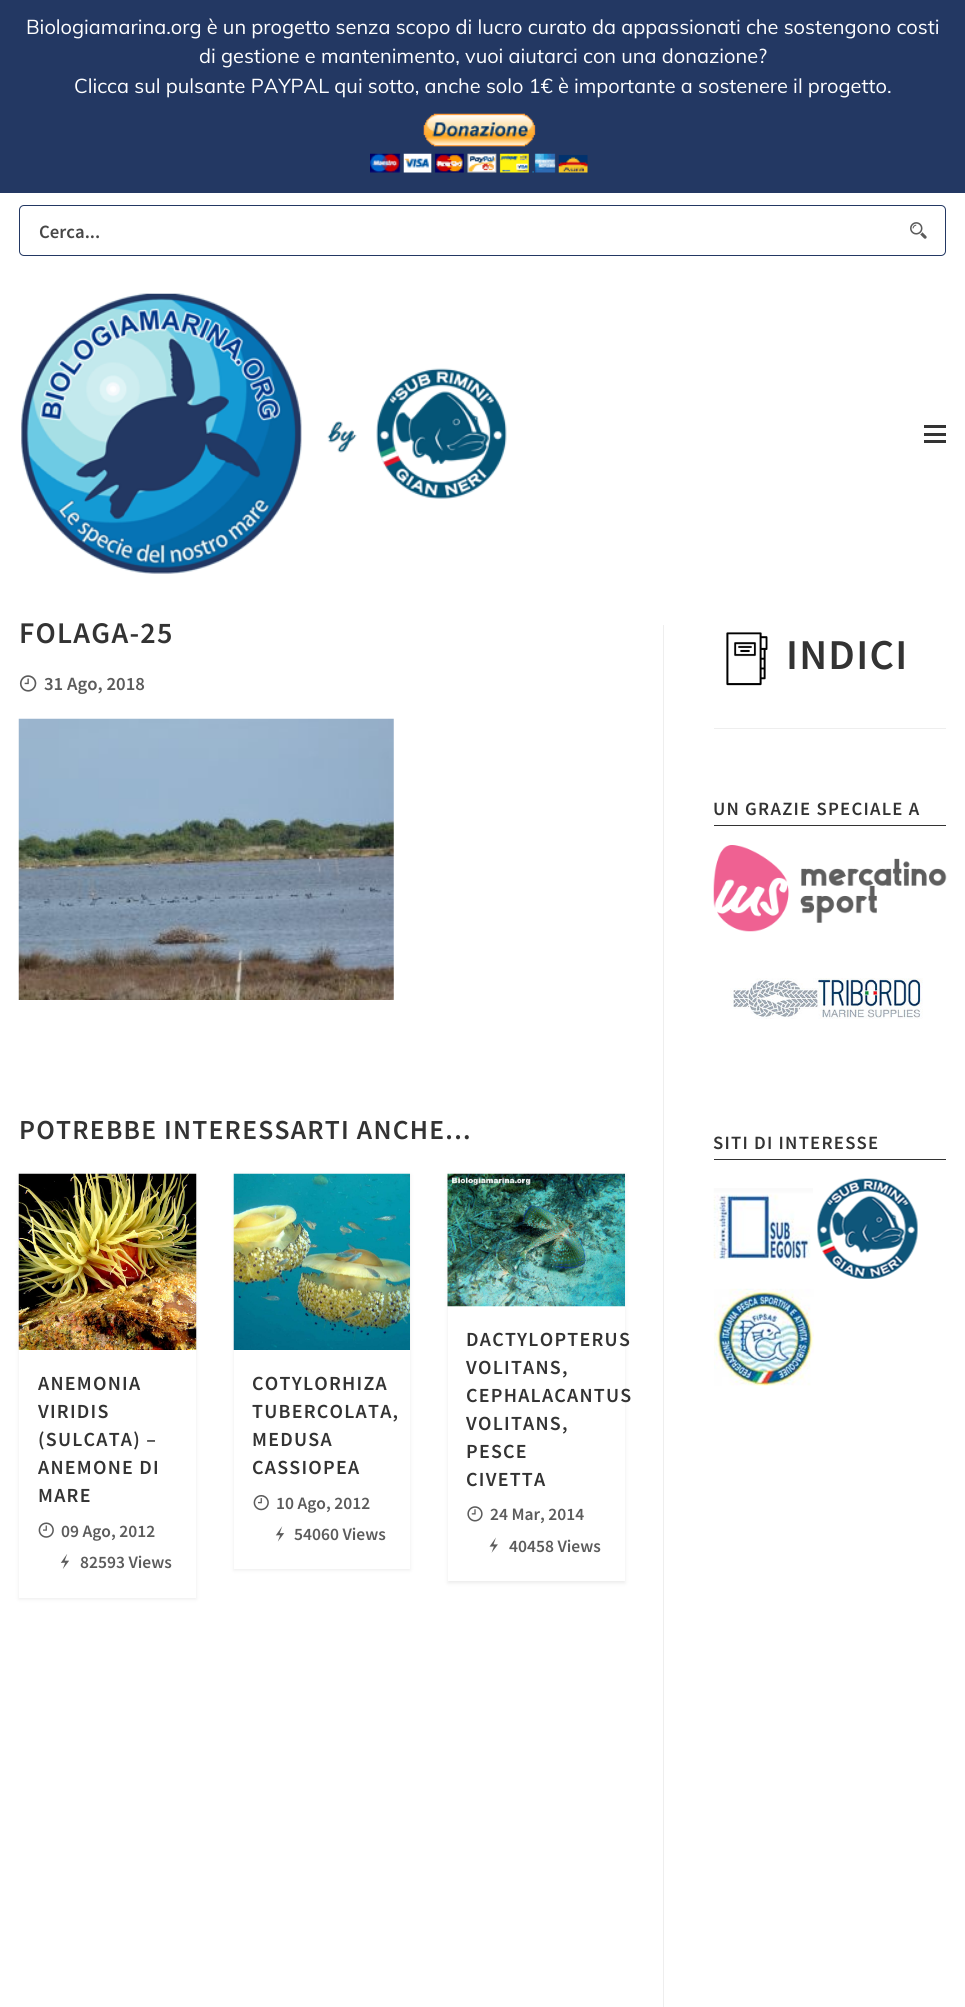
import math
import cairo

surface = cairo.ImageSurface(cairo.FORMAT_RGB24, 965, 2007)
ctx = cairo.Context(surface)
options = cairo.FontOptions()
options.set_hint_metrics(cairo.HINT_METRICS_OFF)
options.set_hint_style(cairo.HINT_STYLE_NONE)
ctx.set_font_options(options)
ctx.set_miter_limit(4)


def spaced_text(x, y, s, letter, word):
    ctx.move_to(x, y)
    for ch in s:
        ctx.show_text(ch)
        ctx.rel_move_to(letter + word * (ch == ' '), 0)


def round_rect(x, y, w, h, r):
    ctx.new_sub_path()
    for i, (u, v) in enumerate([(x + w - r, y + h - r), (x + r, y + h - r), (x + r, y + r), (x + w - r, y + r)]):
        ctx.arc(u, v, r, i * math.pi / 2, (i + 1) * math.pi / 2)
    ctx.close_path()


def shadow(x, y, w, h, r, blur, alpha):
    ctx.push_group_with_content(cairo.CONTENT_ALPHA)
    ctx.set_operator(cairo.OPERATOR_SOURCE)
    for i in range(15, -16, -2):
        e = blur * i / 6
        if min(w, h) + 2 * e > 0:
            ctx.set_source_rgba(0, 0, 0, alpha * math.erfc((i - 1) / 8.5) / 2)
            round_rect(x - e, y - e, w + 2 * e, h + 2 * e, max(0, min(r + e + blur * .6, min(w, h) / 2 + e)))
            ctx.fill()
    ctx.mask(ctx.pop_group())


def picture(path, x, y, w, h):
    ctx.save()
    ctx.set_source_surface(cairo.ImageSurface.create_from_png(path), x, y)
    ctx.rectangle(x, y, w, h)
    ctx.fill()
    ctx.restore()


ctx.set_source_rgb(1, 1, 1)
ctx.paint()
ctx.set_source_rgb(0.137, 0.22, 0.388)
ctx.rectangle(0, 0, 965, 193)
ctx.fill()
ctx.select_font_face("Muli")
ctx.set_font_size(20)
ctx.set_source_rgb(1, 1, 1)
ctx.move_to(26, 34)
ctx.show_text("Biologiamarina.org è un progetto senza scopo di lucro curato da appassionati che sostengono costi")
ctx.move_to(199, 63)
ctx.show_text("di gestione e mantenimento, vuoi aiutarci con una donazione?")
ctx.move_to(74, 93)
ctx.show_text("Clicca sul pulsante PAYPAL qui sotto, anche solo 1€ è importante a sostenere il progetto.")
picture("img1.png", 370, 113, 218, 60)
round_rect(19.5, 205.5, 926, 50, 4.5)
ctx.set_source_rgb(0.137, 0.22, 0.388)
ctx.set_line_width(1)
ctx.stroke()
ctx.select_font_face("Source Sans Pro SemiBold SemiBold")
ctx.set_font_size(18.75)
ctx.set_source_rgb(0.278, 0.278, 0.278)
ctx.move_to(39, 238)
ctx.show_text("Cerca...")
picture("img2.png", 910, 222, 17, 17)
picture("img3.png", 21, 293, 486, 281)
ctx.set_source_rgb(0.2, 0.2, 0.2)
ctx.rectangle(924, 425, 22, 3)
ctx.fill()
ctx.rectangle(924, 433, 22, 3)
ctx.fill()
ctx.rectangle(924, 440, 22, 3)
ctx.fill()
ctx.set_font_size(30)
spaced_text(19, 643, "FOLAGA-25", 1.25, 0)
picture("img4.png", 19, 675, 18, 17)
ctx.set_font_size(18.75)
ctx.set_source_rgb(0.357, 0.357, 0.357)
ctx.move_to(44, 690)
ctx.show_text("31 Ago, 2018")
picture("img5.png", 18, 718, 376, 282)
ctx.set_font_size(27.5)
ctx.set_source_rgb(0.2, 0.2, 0.2)
spaced_text(19, 1139, "POTREBBE INTERESSARTI ANCHE...", 1.25, 0)
ctx.set_source_rgb(0.2, 0.2, 0.2)
shadow(19, 1175, 177, 424, 0, 2, 0.1)
ctx.set_source_rgb(1, 1, 1)
ctx.rectangle(19, 1350, 177, 248)
ctx.fill()
picture("img6.png", 18, 1173, 179, 177)
ctx.set_font_size(20)
ctx.set_source_rgb(0.2, 0.2, 0.2)
spaced_text(38, 1390, "ANEMONIA", 1.25, 0)
spaced_text(38, 1418, "VIRIDIS", 1.25, 0)
spaced_text(38, 1446, "(SULCATA) –", 1.25, 0)
spaced_text(38, 1474, "ANEMONE DI", 1.25, 0)
spaced_text(38, 1502, "MARE", 1.25, 0)
picture("img7.png", 38, 1522, 16, 16)
ctx.set_font_size(17.5)
ctx.set_source_rgb(0.357, 0.357, 0.357)
ctx.move_to(61, 1537)
ctx.show_text("09 Ago, 2012")
picture("img8.png", 60, 1554, 9, 15)
ctx.move_to(80, 1568)
ctx.show_text("82593 Views")
ctx.set_source_rgb(0.2, 0.2, 0.2)
shadow(234, 1175, 176, 395, 0, 2, 0.1)
ctx.set_source_rgb(1, 1, 1)
ctx.rectangle(234, 1350, 176, 219)
ctx.fill()
picture("img9.png", 233, 1173, 177, 177)
ctx.set_font_size(20)
ctx.set_source_rgb(0.2, 0.2, 0.2)
spaced_text(252, 1390, "COTYLORHIZA", 1.25, 0)
spaced_text(252, 1418, "TUBERCOLATA,", 1.25, 0)
spaced_text(252, 1446, "MEDUSA", 1.25, 0)
spaced_text(252, 1474, "CASSIOPEA", 1.25, 0)
picture("img10.png", 253, 1495, 16, 16)
ctx.set_font_size(17.5)
ctx.set_source_rgb(0.357, 0.357, 0.357)
ctx.move_to(276, 1509)
ctx.show_text("10 Ago, 2012")
picture("img11.png", 275, 1526, 10, 16)
ctx.move_to(294, 1540)
ctx.show_text("54060 Views")
ctx.save()
ctx.set_fill_rule(cairo.FILL_RULE_EVEN_ODD)
ctx.new_path()
ctx.move_to(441, 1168)
ctx.line_to(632, 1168)
ctx.line_to(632, 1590)
ctx.line_to(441, 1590)
ctx.close_path()
ctx.move_to(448, 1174)
ctx.line_to(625, 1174)
ctx.line_to(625, 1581)
ctx.line_to(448, 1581)
ctx.close_path()
ctx.clip()
ctx.set_source_rgb(0.2, 0.2, 0.2)
shadow(448, 1175, 177, 408, 0, 2, 0.1)
ctx.restore()
picture("img12.png", 447, 1173, 178, 134)
ctx.set_font_size(20)
ctx.set_source_rgb(0.2, 0.2, 0.2)
spaced_text(466, 1346, "DACTYLOPTERUS", 1.25, 0)
spaced_text(466, 1374, "VOLITANS,", 1.25, 0)
spaced_text(466, 1402, "CEPHALACANTUS", 1.25, 0)
spaced_text(466, 1430, "VOLITANS,", 1.25, 0)
spaced_text(466, 1458, "PESCE", 1.25, 0)
spaced_text(466, 1486, "CIVETTA", 1.25, 0)
picture("img13.png", 467, 1506, 16, 16)
ctx.set_font_size(17.5)
ctx.set_source_rgb(0.357, 0.357, 0.357)
ctx.move_to(490, 1520)
ctx.show_text("24 Mar, 2014")
picture("img14.png", 489, 1537, 9, 16)
ctx.move_to(509, 1552)
ctx.show_text("40458 Views")
ctx.set_source_rgb(0.933, 0.933, 0.933)
ctx.rectangle(663, 625, 1, 1382)
ctx.fill()
picture("img15.png", 726, 632, 42, 54)
ctx.set_font_size(42.5)
ctx.set_source_rgb(0.2, 0.2, 0.2)
spaced_text(786, 669, "INDICI", 1.25, 0)
ctx.set_source_rgb(0.933, 0.933, 0.933)
ctx.rectangle(714, 728, 232, 1)
ctx.fill()
ctx.set_source_rgb(0.2, 0.2, 0.2)
ctx.rectangle(714, 825, 232, 1)
ctx.fill()
ctx.set_font_size(18.75)
spaced_text(713, 815, "UN GRAZIE SPECIALE A", 1.25, 0)
picture("img16.png", 713, 845, 234, 87)
picture("img17.png", 730, 978, 193, 41)
ctx.rectangle(714, 1159, 232, 1)
ctx.fill()
spaced_text(713, 1149, "SITI DI INTERESSE", 1.25, 0)
picture("img18.png", 713, 1188, 100, 72)
picture("img19.png", 817, 1178, 101, 101)
picture("img20.png", 714, 1288, 100, 98)
surface.write_to_png("page.png")
